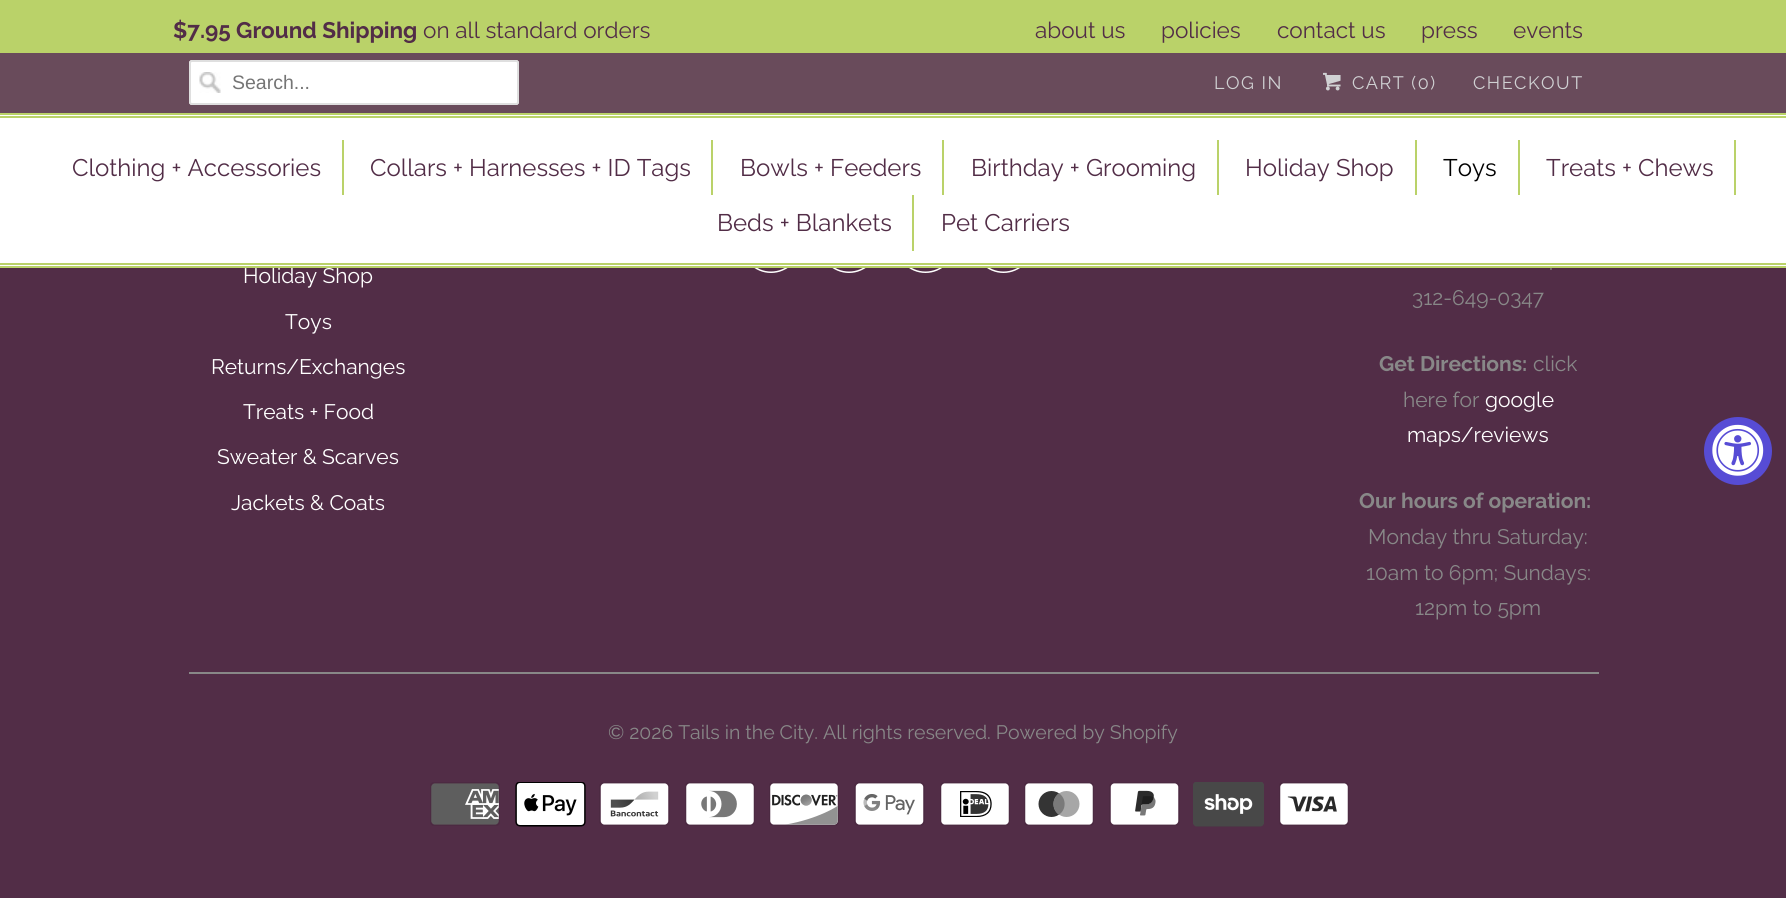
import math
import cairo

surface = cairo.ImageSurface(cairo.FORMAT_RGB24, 1786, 898)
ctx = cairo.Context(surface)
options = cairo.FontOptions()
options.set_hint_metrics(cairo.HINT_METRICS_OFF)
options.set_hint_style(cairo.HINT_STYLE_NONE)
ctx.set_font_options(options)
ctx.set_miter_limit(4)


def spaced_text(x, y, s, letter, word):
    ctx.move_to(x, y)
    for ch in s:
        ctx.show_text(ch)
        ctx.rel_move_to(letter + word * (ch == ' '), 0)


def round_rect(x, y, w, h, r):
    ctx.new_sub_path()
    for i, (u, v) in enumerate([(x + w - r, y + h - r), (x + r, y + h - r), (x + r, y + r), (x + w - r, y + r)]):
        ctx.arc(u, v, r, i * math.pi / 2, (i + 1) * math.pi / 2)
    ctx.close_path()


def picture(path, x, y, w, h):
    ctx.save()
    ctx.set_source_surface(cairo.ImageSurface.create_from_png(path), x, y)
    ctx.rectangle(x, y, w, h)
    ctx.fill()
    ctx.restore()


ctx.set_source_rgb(0.322, 0.176, 0.278)
ctx.paint()
ctx.set_source_rgb(0.729, 0.824, 0.412)
ctx.rectangle(0, 0, 1786, 53)
ctx.fill()
ctx.select_font_face("Raleway", cairo.FONT_SLANT_NORMAL, cairo.FONT_WEIGHT_BOLD)
ctx.set_font_size(22.5)
ctx.set_source_rgb(0.322, 0.176, 0.278)
ctx.move_to(173, 38)
ctx.show_text("$7.95 Ground Shipping")
ctx.select_font_face("Raleway")
ctx.move_to(423, 38)
ctx.show_text("on all standard orders")
ctx.move_to(1035, 38)
ctx.show_text("about us")
ctx.move_to(1161, 38)
ctx.show_text("policies")
ctx.move_to(1277, 38)
ctx.show_text("contact us")
ctx.move_to(1421, 38)
ctx.show_text("press")
ctx.move_to(1513, 38)
ctx.show_text("events")
ctx.set_source_rgb(0.412, 0.294, 0.357)
ctx.rectangle(0, 53, 1786, 60)
ctx.fill()
ctx.set_source_rgb(1, 1, 1)
round_rect(189, 60, 330, 45, 3)
ctx.fill()
picture("img1.png", 199, 72, 22, 21)
round_rect(190, 61, 328, 43, 2)
ctx.set_source_rgb(0.875, 0.875, 0.875)
ctx.stroke()
ctx.select_font_face("Liberation Sans")
ctx.set_font_size(19.5)
ctx.set_source_rgb(0.459, 0.459, 0.459)
ctx.move_to(232, 89)
ctx.show_text("Search...")
ctx.select_font_face("Raleway")
ctx.set_font_size(18)
ctx.set_source_rgb(0.816, 0.82, 0.827)
spaced_text(1214, 89, "LOG IN", 1.5, 0)
picture("img2.png", 1323, 72, 18, 19)
spaced_text(1352, 89, "CART (0)", 1.5, 0)
spaced_text(1473, 89, "CHECKOUT", 1.5, 0)
ctx.set_source_rgb(1, 1, 1)
ctx.rectangle(0, 115, 1786, 151)
ctx.fill()
ctx.set_source_rgb(0.729, 0.824, 0.412)
ctx.rectangle(0, 113, 1786, 2)
ctx.fill()
ctx.rectangle(0, 116, 1786, 2)
ctx.fill()
ctx.rectangle(0, 263, 1786, 2)
ctx.fill()
ctx.set_font_size(21)
ctx.set_source_rgb(1, 1, 1)
ctx.move_to(243, 283)
ctx.show_text("Holiday Shop")
ctx.set_source_rgb(0.533, 0.533, 0.533)
ctx.move_to(1549, 270)
ctx.show_text(".")
ctx.set_source_rgb(0.729, 0.824, 0.412)
ctx.rectangle(0, 266, 1786, 2)
ctx.fill()
ctx.rectangle(342, 140, 2, 55)
ctx.fill()
ctx.set_font_size(24)
ctx.set_source_rgb(0.322, 0.176, 0.278)
ctx.move_to(72, 176)
ctx.show_text("Clothing + Accessories")
ctx.set_source_rgb(0.729, 0.824, 0.412)
ctx.rectangle(711, 140, 2, 55)
ctx.fill()
ctx.set_source_rgb(0.322, 0.176, 0.278)
ctx.move_to(370, 176)
ctx.show_text("Collars + Harnesses + ID Tags")
ctx.set_source_rgb(0.729, 0.824, 0.412)
ctx.rectangle(942, 140, 2, 55)
ctx.fill()
ctx.set_source_rgb(0.322, 0.176, 0.278)
ctx.move_to(740, 176)
ctx.show_text("Bowls + Feeders")
ctx.set_source_rgb(0.729, 0.824, 0.412)
ctx.rectangle(1217, 140, 2, 55)
ctx.fill()
ctx.set_source_rgb(0.322, 0.176, 0.278)
ctx.move_to(971, 176)
ctx.show_text("Birthday + Grooming")
ctx.set_source_rgb(0.729, 0.824, 0.412)
ctx.rectangle(1415, 140, 2, 55)
ctx.fill()
ctx.set_source_rgb(0.322, 0.176, 0.278)
ctx.move_to(1245, 176)
ctx.show_text("Holiday Shop")
ctx.set_source_rgb(0.729, 0.824, 0.412)
ctx.rectangle(1518, 140, 2, 55)
ctx.fill()
ctx.set_source_rgb(0, 0, 0)
ctx.move_to(1443, 176)
ctx.show_text("Toys")
ctx.set_source_rgb(0.729, 0.824, 0.412)
ctx.rectangle(1734, 140, 2, 55)
ctx.fill()
ctx.set_source_rgb(0.322, 0.176, 0.278)
ctx.move_to(1546, 176)
ctx.show_text("Treats + Chews")
ctx.set_source_rgb(0.729, 0.824, 0.412)
ctx.rectangle(912, 195, 2, 56)
ctx.fill()
ctx.set_source_rgb(0.322, 0.176, 0.278)
ctx.move_to(717, 231)
ctx.show_text("Beds + Blankets")
ctx.move_to(941, 231)
ctx.show_text("Pet Carriers")
ctx.set_font_size(21)
ctx.set_source_rgb(1, 1, 1)
ctx.move_to(285, 329)
ctx.show_text("Toys")
ctx.move_to(211, 374)
ctx.show_text("Returns/Exchanges")
ctx.move_to(243, 419)
ctx.show_text("Treats + Food")
ctx.move_to(217, 464)
ctx.show_text("Sweater & Scarves")
ctx.move_to(231, 510)
ctx.show_text("Jackets & Coats")
picture("img3.png", 754, 268, 34, 5)
picture("img3.png", 832, 268, 34, 5)
picture("img4.png", 909, 268, 33, 5)
picture("img4.png", 987, 268, 33, 5)
ctx.set_source_rgb(0.533, 0.533, 0.533)
ctx.move_to(1412, 305)
ctx.show_text("312-649-0347")
ctx.select_font_face("Raleway", cairo.FONT_SLANT_NORMAL, cairo.FONT_WEIGHT_BOLD)
ctx.move_to(1379, 371)
ctx.show_text("Get Directions:")
ctx.select_font_face("Raleway")
ctx.move_to(1533, 371)
ctx.show_text("click")
ctx.move_to(1403, 407)
ctx.show_text("here for")
ctx.set_source_rgb(1, 1, 1)
ctx.move_to(1485, 407)
ctx.show_text("google")
ctx.move_to(1407, 442)
ctx.show_text("maps/reviews")
ctx.select_font_face("Raleway", cairo.FONT_SLANT_NORMAL, cairo.FONT_WEIGHT_BOLD)
ctx.set_source_rgb(0.533, 0.533, 0.533)
ctx.move_to(1359, 508)
ctx.show_text("Our hours of operation:")
ctx.select_font_face("Raleway")
ctx.move_to(1368, 544)
ctx.show_text("Monday thru Saturday:")
ctx.move_to(1366, 580)
ctx.show_text("10am to 6pm; Sundays:")
ctx.move_to(1415, 615)
ctx.show_text("12pm to 5pm")
ctx.rectangle(189, 672, 1410, 2)
ctx.fill()
ctx.set_font_size(19.5)
ctx.move_to(608, 739)
ctx.show_text("© 2026 Tails in the City. All rights reserved. Powered by Shopify")
picture("img5.png", 430, 782, 70, 44)
picture("img6.png", 515, 782, 71, 45)
picture("img7.png", 599, 782, 71, 44)
picture("img8.png", 685, 782, 70, 44)
picture("img9.png", 769, 782, 70, 44)
picture("img10.png", 854, 782, 71, 44)
picture("img11.png", 940, 782, 70, 44)
picture("img12.png", 1024, 782, 70, 44)
picture("img13.png", 1109, 782, 71, 44)
picture("img14.png", 1193, 782, 71, 45)
picture("img15.png", 1279, 782, 70, 44)
ctx.set_source_rgb(0.341, 0.298, 0.835)
ctx.arc(1738, 451, 34, 0, 2 * math.pi)
ctx.fill()
picture("img16.png", 1712, 424, 52, 52)
surface.write_to_png("page.png")
